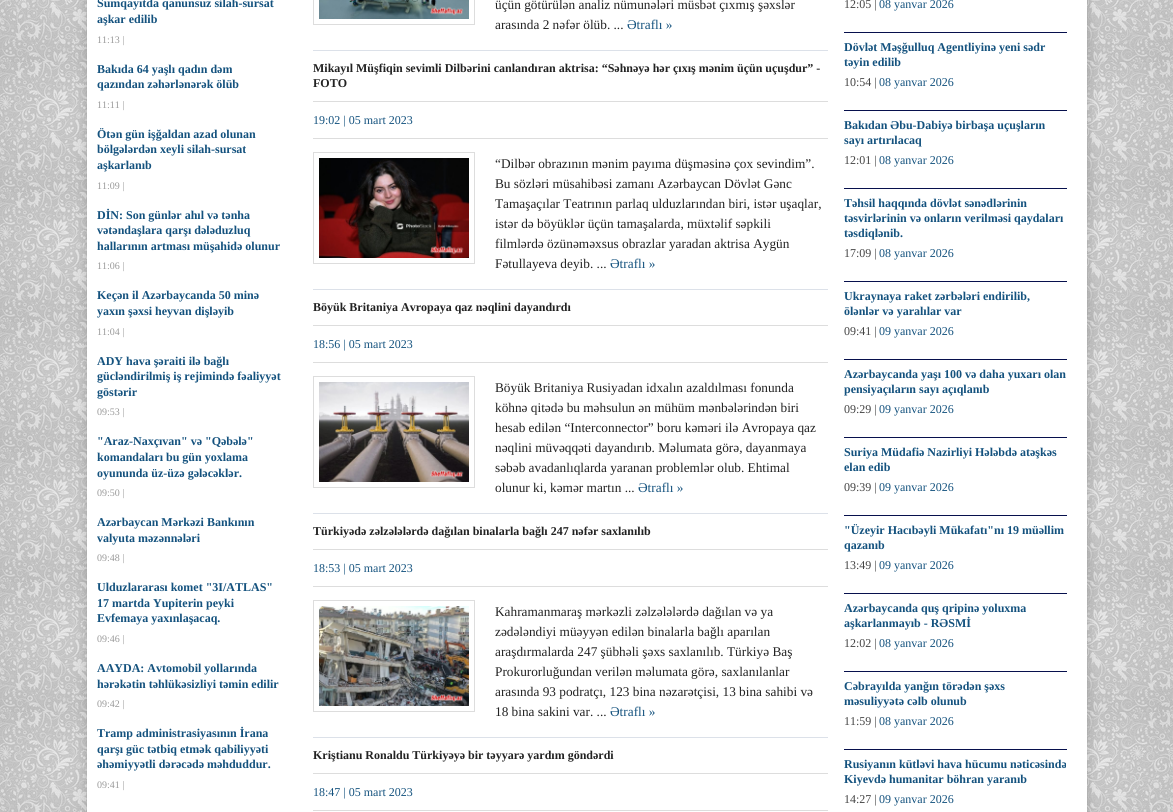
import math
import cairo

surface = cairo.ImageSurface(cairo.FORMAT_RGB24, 1173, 812)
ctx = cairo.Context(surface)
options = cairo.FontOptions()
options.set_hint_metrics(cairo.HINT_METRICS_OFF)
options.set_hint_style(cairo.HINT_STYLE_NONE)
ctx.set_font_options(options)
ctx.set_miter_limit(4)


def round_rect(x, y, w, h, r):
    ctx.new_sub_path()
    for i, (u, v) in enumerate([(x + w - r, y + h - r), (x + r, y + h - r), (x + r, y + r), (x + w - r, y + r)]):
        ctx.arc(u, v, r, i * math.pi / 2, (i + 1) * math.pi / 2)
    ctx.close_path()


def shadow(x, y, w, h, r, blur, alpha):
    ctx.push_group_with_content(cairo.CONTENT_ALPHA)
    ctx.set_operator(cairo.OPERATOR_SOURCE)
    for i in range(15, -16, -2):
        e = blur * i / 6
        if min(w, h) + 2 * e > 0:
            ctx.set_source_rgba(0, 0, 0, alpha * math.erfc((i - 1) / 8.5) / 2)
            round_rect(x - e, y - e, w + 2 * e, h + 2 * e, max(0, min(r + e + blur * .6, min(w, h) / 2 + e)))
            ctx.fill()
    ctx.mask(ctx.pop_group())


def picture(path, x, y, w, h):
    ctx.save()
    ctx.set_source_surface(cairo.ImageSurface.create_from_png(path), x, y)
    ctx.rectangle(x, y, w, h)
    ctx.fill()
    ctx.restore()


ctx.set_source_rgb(1, 1, 1)
ctx.paint()
picture("img1.png", 0, 0, 1173, 812)
ctx.set_source_rgb(0, 0, 0)
shadow(87, -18, 1000, 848, 0, 6, 0.2)
ctx.set_source_rgb(1, 1, 1)
ctx.rectangle(87, 0, 1000, 812)
ctx.fill()
ctx.select_font_face("Liberation Serif", cairo.FONT_SLANT_NORMAL, cairo.FONT_WEIGHT_BOLD)
ctx.set_font_size(12)
ctx.set_source_rgb(0.082, 0.322, 0.494)
ctx.move_to(97, 7)
ctx.show_text("Sumqayıtda qanunsuz silah-sursat")
ctx.move_to(97, 23)
ctx.show_text("aşkar edilib")
ctx.select_font_face("Liberation Serif")
ctx.set_font_size(10)
ctx.set_source_rgb(0.6, 0.6, 0.6)
ctx.move_to(97, 43)
ctx.show_text("11:13 |")
ctx.select_font_face("Liberation Serif", cairo.FONT_SLANT_NORMAL, cairo.FONT_WEIGHT_BOLD)
ctx.set_font_size(12)
ctx.set_source_rgb(0.082, 0.322, 0.494)
ctx.move_to(97, 73)
ctx.show_text("Bakıda 64 yaşlı qadın dəm")
ctx.move_to(97, 88)
ctx.show_text("qazından zəhərlənərək ölüb")
ctx.select_font_face("Liberation Serif")
ctx.set_font_size(10)
ctx.set_source_rgb(0.6, 0.6, 0.6)
ctx.move_to(97, 108)
ctx.show_text("11:11 |")
ctx.select_font_face("Liberation Serif", cairo.FONT_SLANT_NORMAL, cairo.FONT_WEIGHT_BOLD)
ctx.set_font_size(12)
ctx.set_source_rgb(0.082, 0.322, 0.494)
ctx.move_to(97, 138)
ctx.show_text("Ötən gün işğaldan azad olunan")
ctx.move_to(97, 153)
ctx.show_text("bölgələrdən xeyli silah-sursat")
ctx.move_to(97, 169)
ctx.show_text("aşkarlanıb")
ctx.select_font_face("Liberation Serif")
ctx.set_font_size(10)
ctx.set_source_rgb(0.6, 0.6, 0.6)
ctx.move_to(97, 189)
ctx.show_text("11:09 |")
ctx.select_font_face("Liberation Serif", cairo.FONT_SLANT_NORMAL, cairo.FONT_WEIGHT_BOLD)
ctx.set_font_size(12)
ctx.set_source_rgb(0.082, 0.322, 0.494)
ctx.move_to(97, 219)
ctx.show_text("DİN: Son günlər ahıl və tənha")
ctx.move_to(97, 234)
ctx.show_text("vətəndaşlara qarşı dələduzluq")
ctx.move_to(97, 250)
ctx.show_text("hallarının artması müşahidə olunur")
ctx.select_font_face("Liberation Serif")
ctx.set_font_size(10)
ctx.set_source_rgb(0.6, 0.6, 0.6)
ctx.move_to(97, 269)
ctx.show_text("11:06 |")
ctx.select_font_face("Liberation Serif", cairo.FONT_SLANT_NORMAL, cairo.FONT_WEIGHT_BOLD)
ctx.set_font_size(12)
ctx.set_source_rgb(0.082, 0.322, 0.494)
ctx.move_to(97, 299)
ctx.show_text("Keçən il Azərbaycanda 50 minə")
ctx.move_to(97, 315)
ctx.show_text("yaxın şəxsi heyvan dişləyib")
ctx.select_font_face("Liberation Serif")
ctx.set_font_size(10)
ctx.set_source_rgb(0.6, 0.6, 0.6)
ctx.move_to(97, 335)
ctx.show_text("11:04 |")
ctx.select_font_face("Liberation Serif", cairo.FONT_SLANT_NORMAL, cairo.FONT_WEIGHT_BOLD)
ctx.set_font_size(12)
ctx.set_source_rgb(0.082, 0.322, 0.494)
ctx.move_to(97, 365)
ctx.show_text("ADY hava şəraiti ilə bağlı")
ctx.move_to(97, 380)
ctx.show_text("gücləndirilmiş iş rejimində fəaliyyət")
ctx.move_to(97, 396)
ctx.show_text("göstərir")
ctx.select_font_face("Liberation Serif")
ctx.set_font_size(10)
ctx.set_source_rgb(0.6, 0.6, 0.6)
ctx.move_to(97, 415)
ctx.show_text("09:53 |")
ctx.select_font_face("Liberation Serif", cairo.FONT_SLANT_NORMAL, cairo.FONT_WEIGHT_BOLD)
ctx.set_font_size(12)
ctx.set_source_rgb(0.082, 0.322, 0.494)
ctx.move_to(97, 445)
ctx.show_text("\"Araz-Naxçıvan\" və \"Qəbələ\"")
ctx.move_to(97, 461)
ctx.show_text("komandaları bu gün yoxlama")
ctx.move_to(97, 477)
ctx.show_text("oyununda üz-üzə gələcəklər.")
ctx.select_font_face("Liberation Serif")
ctx.set_font_size(10)
ctx.set_source_rgb(0.6, 0.6, 0.6)
ctx.move_to(97, 496)
ctx.show_text("09:50 |")
ctx.select_font_face("Liberation Serif", cairo.FONT_SLANT_NORMAL, cairo.FONT_WEIGHT_BOLD)
ctx.set_font_size(12)
ctx.set_source_rgb(0.082, 0.322, 0.494)
ctx.move_to(97, 526)
ctx.show_text("Azərbaycan Mərkəzi Bankının")
ctx.move_to(97, 542)
ctx.show_text("valyuta məzənnələri")
ctx.select_font_face("Liberation Serif")
ctx.set_font_size(10)
ctx.set_source_rgb(0.6, 0.6, 0.6)
ctx.move_to(97, 561)
ctx.show_text("09:48 |")
ctx.select_font_face("Liberation Serif", cairo.FONT_SLANT_NORMAL, cairo.FONT_WEIGHT_BOLD)
ctx.set_font_size(12)
ctx.set_source_rgb(0.082, 0.322, 0.494)
ctx.move_to(97, 591)
ctx.show_text("Ulduzlararası komet \"3I/ATLAS\"")
ctx.move_to(97, 607)
ctx.show_text("17 martda Yupiterin peyki")
ctx.move_to(97, 622)
ctx.show_text("Evfemaya yaxınlaşacaq.")
ctx.select_font_face("Liberation Serif")
ctx.set_font_size(10)
ctx.set_source_rgb(0.6, 0.6, 0.6)
ctx.move_to(97, 642)
ctx.show_text("09:46 |")
ctx.select_font_face("Liberation Serif", cairo.FONT_SLANT_NORMAL, cairo.FONT_WEIGHT_BOLD)
ctx.set_font_size(12)
ctx.set_source_rgb(0.082, 0.322, 0.494)
ctx.move_to(97, 672)
ctx.show_text("AAYDA: Avtomobil yollarında")
ctx.move_to(97, 688)
ctx.show_text("hərəkətin təhlükəsizliyi təmin edilir")
ctx.select_font_face("Liberation Serif")
ctx.set_font_size(10)
ctx.set_source_rgb(0.6, 0.6, 0.6)
ctx.move_to(97, 707)
ctx.show_text("09:42 |")
ctx.select_font_face("Liberation Serif", cairo.FONT_SLANT_NORMAL, cairo.FONT_WEIGHT_BOLD)
ctx.set_font_size(12)
ctx.set_source_rgb(0.082, 0.322, 0.494)
ctx.move_to(97, 737)
ctx.show_text("Tramp administrasiyasının İrana")
ctx.move_to(97, 753)
ctx.show_text("qarşı güc tətbiq etmək qabiliyyəti")
ctx.move_to(97, 768)
ctx.show_text("əhəmiyyətli dərəcədə məhduddur.")
ctx.select_font_face("Liberation Serif")
ctx.set_font_size(10)
ctx.set_source_rgb(0.6, 0.6, 0.6)
ctx.move_to(97, 788)
ctx.show_text("09:41 |")
ctx.set_source_rgb(0.863, 0.882, 0.914)
ctx.rectangle(313, 50, 515, 1)
ctx.fill()
ctx.rectangle(313.5, -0.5, 161, 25)
ctx.set_source_rgb(0.867, 0.867, 0.867)
ctx.set_line_width(1)
ctx.stroke()
picture("img2.png", 319, 0, 150, 19)
ctx.set_font_size(13.3)
ctx.set_source_rgb(0.133, 0.133, 0.133)
ctx.move_to(495, 9)
ctx.show_text("üçün götürülən analiz nümunələri müsbət çıxmış şəxslər")
ctx.move_to(495, 29)
ctx.show_text("arasında 2 nəfər ölüb. ...")
ctx.set_source_rgb(0.082, 0.322, 0.494)
ctx.move_to(627, 29)
ctx.show_text("Ətraflı »")
ctx.set_source_rgb(0.867, 0.867, 0.867)
ctx.rectangle(313, 101, 515, 1)
ctx.fill()
ctx.select_font_face("Liberation Serif", cairo.FONT_SLANT_NORMAL, cairo.FONT_WEIGHT_BOLD)
ctx.set_font_size(12)
ctx.set_source_rgb(0.133, 0.133, 0.133)
ctx.move_to(313, 72)
ctx.show_text("Mikayıl Müşfiqin sevimli Dilbərini canlandıran aktrisa: “Səhnəyə hər çıxış mənim üçün uçuşdur” -")
ctx.move_to(313, 87)
ctx.show_text("FOTO")
ctx.set_source_rgb(0.867, 0.867, 0.867)
ctx.rectangle(313, 138, 515, 1)
ctx.fill()
ctx.select_font_face("Liberation Serif")
ctx.set_source_rgb(0.082, 0.322, 0.494)
ctx.move_to(313, 124)
ctx.show_text("19:02 | 05 mart 2023")
ctx.set_source_rgb(0.863, 0.882, 0.914)
ctx.rectangle(313, 289, 515, 1)
ctx.fill()
ctx.rectangle(313.5, 152.5, 161, 111)
ctx.set_source_rgb(0.867, 0.867, 0.867)
ctx.stroke()
picture("img3.png", 319, 158, 150, 100)
ctx.set_font_size(13.3)
ctx.set_source_rgb(0.133, 0.133, 0.133)
ctx.move_to(495, 168)
ctx.show_text("“Dilbər obrazının mənim payıma düşməsinə çox sevindim”.")
ctx.move_to(495, 188)
ctx.show_text("Bu sözləri müsahibəsi zamanı Azərbaycan Dövlət Gənc")
ctx.move_to(495, 208)
ctx.show_text("Tamaşaçılar Teatrının parlaq ulduzlarından biri, istər uşaqlar,")
ctx.move_to(495, 228)
ctx.show_text("istər də böyüklər üçün tamaşalarda, müxtəlif səpkili")
ctx.move_to(495, 248)
ctx.show_text("filmlərdə özünəməxsus obrazlar yaradan aktrisa Aygün")
ctx.move_to(495, 268)
ctx.show_text("Fətullayeva deyib. ...")
ctx.set_source_rgb(0.082, 0.322, 0.494)
ctx.move_to(610, 268)
ctx.show_text("Ətraflı »")
ctx.set_source_rgb(0.867, 0.867, 0.867)
ctx.rectangle(313, 325, 515, 1)
ctx.fill()
ctx.select_font_face("Liberation Serif", cairo.FONT_SLANT_NORMAL, cairo.FONT_WEIGHT_BOLD)
ctx.set_font_size(12)
ctx.set_source_rgb(0.133, 0.133, 0.133)
ctx.move_to(313, 311)
ctx.show_text("Böyük Britaniya Avropaya qaz nəqlini dayandırdı")
ctx.set_source_rgb(0.867, 0.867, 0.867)
ctx.rectangle(313, 362, 515, 1)
ctx.fill()
ctx.select_font_face("Liberation Serif")
ctx.set_source_rgb(0.082, 0.322, 0.494)
ctx.move_to(313, 348)
ctx.show_text("18:56 | 05 mart 2023")
ctx.set_source_rgb(0.863, 0.882, 0.914)
ctx.rectangle(313, 513, 515, 1)
ctx.fill()
ctx.rectangle(313.5, 376.5, 161, 111)
ctx.set_source_rgb(0.867, 0.867, 0.867)
ctx.stroke()
picture("img4.png", 319, 382, 150, 100)
ctx.set_font_size(13.3)
ctx.set_source_rgb(0.133, 0.133, 0.133)
ctx.move_to(495, 392)
ctx.show_text("Böyük Britaniya Rusiyadan idxalın azaldılması fonunda")
ctx.move_to(495, 412)
ctx.show_text("köhnə qitədə bu məhsulun ən mühüm mənbələrindən biri")
ctx.move_to(495, 432)
ctx.show_text("hesab edilən “Interconnector” boru kəməri ilə Avropaya qaz")
ctx.move_to(495, 452)
ctx.show_text("nəqlini müvəqqəti dayandırıb. Məlumata görə, dayanmaya")
ctx.move_to(495, 472)
ctx.show_text("səbəb avadanlıqlarda yaranan problemlər olub. Ehtimal")
ctx.move_to(495, 492)
ctx.show_text("olunur ki, kəmər martın ...")
ctx.set_source_rgb(0.082, 0.322, 0.494)
ctx.move_to(638, 492)
ctx.show_text("Ətraflı »")
ctx.set_source_rgb(0.867, 0.867, 0.867)
ctx.rectangle(313, 549, 515, 1)
ctx.fill()
ctx.select_font_face("Liberation Serif", cairo.FONT_SLANT_NORMAL, cairo.FONT_WEIGHT_BOLD)
ctx.set_font_size(12)
ctx.set_source_rgb(0.133, 0.133, 0.133)
ctx.move_to(313, 535)
ctx.show_text("Türkiyədə zəlzələlərdə dağılan binalarla bağlı 247 nəfər saxlanılıb")
ctx.set_source_rgb(0.867, 0.867, 0.867)
ctx.rectangle(313, 586, 515, 1)
ctx.fill()
ctx.select_font_face("Liberation Serif")
ctx.set_source_rgb(0.082, 0.322, 0.494)
ctx.move_to(313, 572)
ctx.show_text("18:53 | 05 mart 2023")
ctx.set_source_rgb(0.863, 0.882, 0.914)
ctx.rectangle(313, 737, 515, 1)
ctx.fill()
ctx.rectangle(313.5, 600.5, 161, 111)
ctx.set_source_rgb(0.867, 0.867, 0.867)
ctx.stroke()
picture("img5.png", 319, 606, 150, 100)
ctx.set_font_size(13.3)
ctx.set_source_rgb(0.133, 0.133, 0.133)
ctx.move_to(495, 616)
ctx.show_text("Kahramanmaraş mərkəzli zəlzələlərdə dağılan və ya")
ctx.move_to(495, 636)
ctx.show_text("zədələndiyi müəyyən edilən binalarla bağlı aparılan")
ctx.move_to(495, 656)
ctx.show_text("araşdırmalarda 247 şübhəli şəxs saxlanılıb. Türkiyə Baş")
ctx.move_to(495, 676)
ctx.show_text("Prokurorluğundan verilən məlumata görə, saxlanılanlar")
ctx.move_to(495, 696)
ctx.show_text("arasında 93 podratçı, 123 bina nəzarətçisi, 13 bina sahibi və")
ctx.move_to(495, 716)
ctx.show_text("18 bina sakini var. ...")
ctx.set_source_rgb(0.082, 0.322, 0.494)
ctx.move_to(610, 716)
ctx.show_text("Ətraflı »")
ctx.set_source_rgb(0.867, 0.867, 0.867)
ctx.rectangle(313, 773, 515, 1)
ctx.fill()
ctx.select_font_face("Liberation Serif", cairo.FONT_SLANT_NORMAL, cairo.FONT_WEIGHT_BOLD)
ctx.set_font_size(12)
ctx.set_source_rgb(0.133, 0.133, 0.133)
ctx.move_to(313, 759)
ctx.show_text("Kriştianu Ronaldu Türkiyəyə bir təyyarə yardım göndərdi")
ctx.set_source_rgb(0.867, 0.867, 0.867)
ctx.rectangle(313, 810, 515, 1)
ctx.fill()
ctx.select_font_face("Liberation Serif")
ctx.set_source_rgb(0.082, 0.322, 0.494)
ctx.move_to(313, 796)
ctx.show_text("18:47 | 05 mart 2023")
ctx.set_source_rgb(0.267, 0.267, 0.267)
ctx.move_to(844, 8)
ctx.show_text("12:05 |")
ctx.set_source_rgb(0.082, 0.322, 0.494)
ctx.move_to(879, 8)
ctx.show_text("08 yanvar 2026")
ctx.set_source_rgb(0.031, 0.063, 0.302)
ctx.rectangle(844, 32, 223, 1)
ctx.fill()
ctx.select_font_face("Liberation Serif", cairo.FONT_SLANT_NORMAL, cairo.FONT_WEIGHT_BOLD)
ctx.set_source_rgb(0.082, 0.322, 0.494)
ctx.move_to(844, 51)
ctx.show_text("Dövlət Məşğulluq Agentliyinə yeni sədr")
ctx.move_to(844, 66)
ctx.show_text("təyin edilib")
ctx.select_font_face("Liberation Serif")
ctx.set_source_rgb(0.267, 0.267, 0.267)
ctx.move_to(844, 86)
ctx.show_text("10:54 |")
ctx.set_source_rgb(0.082, 0.322, 0.494)
ctx.move_to(879, 86)
ctx.show_text("08 yanvar 2026")
ctx.set_source_rgb(0.031, 0.063, 0.302)
ctx.rectangle(844, 110, 223, 1)
ctx.fill()
ctx.select_font_face("Liberation Serif", cairo.FONT_SLANT_NORMAL, cairo.FONT_WEIGHT_BOLD)
ctx.set_source_rgb(0.082, 0.322, 0.494)
ctx.move_to(844, 129)
ctx.show_text("Bakıdan Əbu-Dabiyə birbaşa uçuşların")
ctx.move_to(844, 144)
ctx.show_text("sayı artırılacaq")
ctx.select_font_face("Liberation Serif")
ctx.set_source_rgb(0.267, 0.267, 0.267)
ctx.move_to(844, 164)
ctx.show_text("12:01 |")
ctx.set_source_rgb(0.082, 0.322, 0.494)
ctx.move_to(879, 164)
ctx.show_text("08 yanvar 2026")
ctx.set_source_rgb(0.031, 0.063, 0.302)
ctx.rectangle(844, 188, 223, 1)
ctx.fill()
ctx.select_font_face("Liberation Serif", cairo.FONT_SLANT_NORMAL, cairo.FONT_WEIGHT_BOLD)
ctx.set_source_rgb(0.082, 0.322, 0.494)
ctx.move_to(844, 207)
ctx.show_text("Təhsil haqqında dövlət sənədlərinin")
ctx.move_to(844, 222)
ctx.show_text("təsvirlərinin və onların verilməsi qaydaları")
ctx.move_to(844, 237)
ctx.show_text("təsdiqlənib.")
ctx.select_font_face("Liberation Serif")
ctx.set_source_rgb(0.267, 0.267, 0.267)
ctx.move_to(844, 257)
ctx.show_text("17:09 |")
ctx.set_source_rgb(0.082, 0.322, 0.494)
ctx.move_to(879, 257)
ctx.show_text("08 yanvar 2026")
ctx.set_source_rgb(0.031, 0.063, 0.302)
ctx.rectangle(844, 281, 223, 1)
ctx.fill()
ctx.select_font_face("Liberation Serif", cairo.FONT_SLANT_NORMAL, cairo.FONT_WEIGHT_BOLD)
ctx.set_source_rgb(0.082, 0.322, 0.494)
ctx.move_to(844, 300)
ctx.show_text("Ukraynaya raket zərbələri endirilib,")
ctx.move_to(844, 315)
ctx.show_text("ölənlər və yaralılar var")
ctx.select_font_face("Liberation Serif")
ctx.set_source_rgb(0.267, 0.267, 0.267)
ctx.move_to(844, 335)
ctx.show_text("09:41 |")
ctx.set_source_rgb(0.082, 0.322, 0.494)
ctx.move_to(879, 335)
ctx.show_text("09 yanvar 2026")
ctx.set_source_rgb(0.031, 0.063, 0.302)
ctx.rectangle(844, 359, 223, 1)
ctx.fill()
ctx.select_font_face("Liberation Serif", cairo.FONT_SLANT_NORMAL, cairo.FONT_WEIGHT_BOLD)
ctx.set_source_rgb(0.082, 0.322, 0.494)
ctx.move_to(844, 378)
ctx.show_text("Azərbaycanda yaşı 100 və daha yuxarı olan")
ctx.move_to(844, 393)
ctx.show_text("pensiyaçıların sayı açıqlanıb")
ctx.select_font_face("Liberation Serif")
ctx.set_source_rgb(0.267, 0.267, 0.267)
ctx.move_to(844, 413)
ctx.show_text("09:29 |")
ctx.set_source_rgb(0.082, 0.322, 0.494)
ctx.move_to(879, 413)
ctx.show_text("09 yanvar 2026")
ctx.set_source_rgb(0.031, 0.063, 0.302)
ctx.rectangle(844, 437, 223, 1)
ctx.fill()
ctx.select_font_face("Liberation Serif", cairo.FONT_SLANT_NORMAL, cairo.FONT_WEIGHT_BOLD)
ctx.set_source_rgb(0.082, 0.322, 0.494)
ctx.move_to(844, 456)
ctx.show_text("Suriya Müdafiə Nazirliyi Hələbdə atəşkəs")
ctx.move_to(844, 471)
ctx.show_text("elan edib")
ctx.select_font_face("Liberation Serif")
ctx.set_source_rgb(0.267, 0.267, 0.267)
ctx.move_to(844, 491)
ctx.show_text("09:39 |")
ctx.set_source_rgb(0.082, 0.322, 0.494)
ctx.move_to(879, 491)
ctx.show_text("09 yanvar 2026")
ctx.set_source_rgb(0.031, 0.063, 0.302)
ctx.rectangle(844, 515, 223, 1)
ctx.fill()
ctx.select_font_face("Liberation Serif", cairo.FONT_SLANT_NORMAL, cairo.FONT_WEIGHT_BOLD)
ctx.set_source_rgb(0.082, 0.322, 0.494)
ctx.move_to(844, 534)
ctx.show_text("\"Üzeyir Hacıbəyli Mükafatı\"nı 19 müəllim")
ctx.move_to(844, 549)
ctx.show_text("qazanıb")
ctx.select_font_face("Liberation Serif")
ctx.set_source_rgb(0.267, 0.267, 0.267)
ctx.move_to(844, 569)
ctx.show_text("13:49 |")
ctx.set_source_rgb(0.082, 0.322, 0.494)
ctx.move_to(879, 569)
ctx.show_text("09 yanvar 2026")
ctx.set_source_rgb(0.031, 0.063, 0.302)
ctx.rectangle(844, 593, 223, 1)
ctx.fill()
ctx.select_font_face("Liberation Serif", cairo.FONT_SLANT_NORMAL, cairo.FONT_WEIGHT_BOLD)
ctx.set_source_rgb(0.082, 0.322, 0.494)
ctx.move_to(844, 612)
ctx.show_text("Azərbaycanda quş qripinə yoluxma")
ctx.move_to(844, 627)
ctx.show_text("aşkarlanmayıb - RƏSMİ")
ctx.select_font_face("Liberation Serif")
ctx.set_source_rgb(0.267, 0.267, 0.267)
ctx.move_to(844, 647)
ctx.show_text("12:02 |")
ctx.set_source_rgb(0.082, 0.322, 0.494)
ctx.move_to(879, 647)
ctx.show_text("08 yanvar 2026")
ctx.set_source_rgb(0.031, 0.063, 0.302)
ctx.rectangle(844, 671, 223, 1)
ctx.fill()
ctx.select_font_face("Liberation Serif", cairo.FONT_SLANT_NORMAL, cairo.FONT_WEIGHT_BOLD)
ctx.set_source_rgb(0.082, 0.322, 0.494)
ctx.move_to(844, 690)
ctx.show_text("Cəbrayılda yanğın törədən şəxs")
ctx.move_to(844, 705)
ctx.show_text("məsuliyyətə cəlb olunub")
ctx.select_font_face("Liberation Serif")
ctx.set_source_rgb(0.267, 0.267, 0.267)
ctx.move_to(844, 725)
ctx.show_text("11:59 |")
ctx.set_source_rgb(0.082, 0.322, 0.494)
ctx.move_to(879, 725)
ctx.show_text("08 yanvar 2026")
ctx.set_source_rgb(0.031, 0.063, 0.302)
ctx.rectangle(844, 749, 223, 1)
ctx.fill()
ctx.select_font_face("Liberation Serif", cairo.FONT_SLANT_NORMAL, cairo.FONT_WEIGHT_BOLD)
ctx.set_source_rgb(0.082, 0.322, 0.494)
ctx.move_to(844, 768)
ctx.show_text("Rusiyanın kütləvi hava hücumu nəticəsində")
ctx.move_to(844, 783)
ctx.show_text("Kiyevdə humanitar böhran yaranıb")
ctx.select_font_face("Liberation Serif")
ctx.set_source_rgb(0.267, 0.267, 0.267)
ctx.move_to(844, 803)
ctx.show_text("14:27 |")
ctx.set_source_rgb(0.082, 0.322, 0.494)
ctx.move_to(879, 803)
ctx.show_text("09 yanvar 2026")
surface.write_to_png("page.png")
